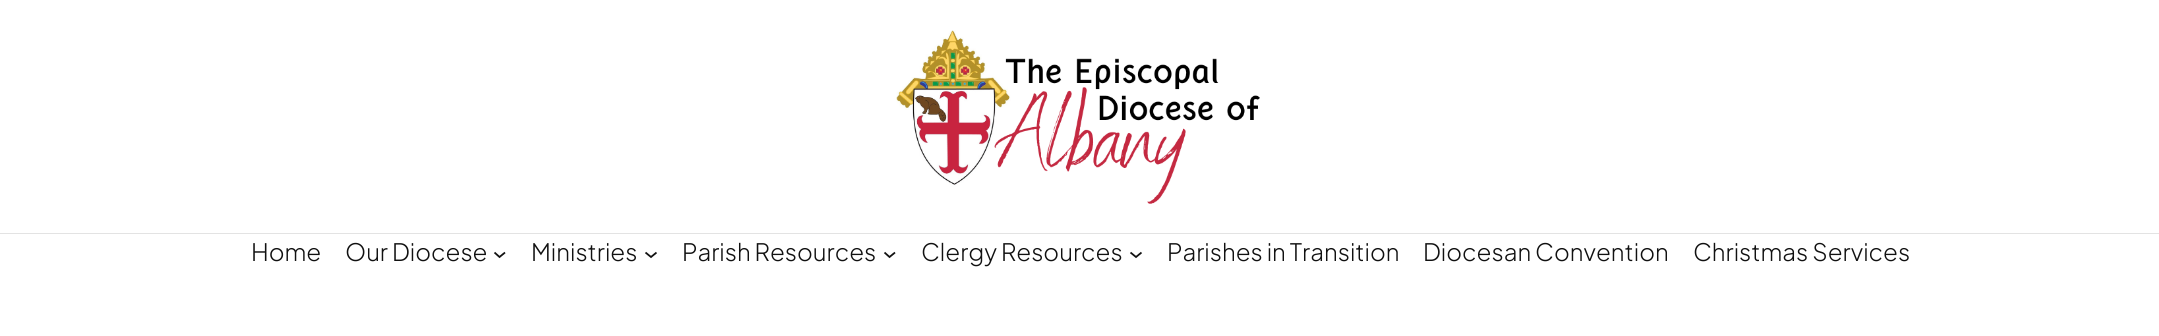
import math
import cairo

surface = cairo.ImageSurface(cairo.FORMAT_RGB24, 2159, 336)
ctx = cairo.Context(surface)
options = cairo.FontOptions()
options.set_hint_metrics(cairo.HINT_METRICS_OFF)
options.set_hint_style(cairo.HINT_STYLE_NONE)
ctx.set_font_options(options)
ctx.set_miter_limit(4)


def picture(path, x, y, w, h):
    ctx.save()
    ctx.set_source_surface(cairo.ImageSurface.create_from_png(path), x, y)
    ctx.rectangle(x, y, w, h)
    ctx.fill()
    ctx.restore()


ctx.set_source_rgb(1, 1, 1)
ctx.paint()
ctx.set_source_rgb(0.89, 0.89, 0.89)
ctx.rectangle(0, 233, 2159, 1)
ctx.fill()
picture("img1.png", 896, 30, 364, 174)
ctx.select_font_face("Plus Jakarta Sans Light")
ctx.set_font_size(24)
ctx.set_source_rgb(0.067, 0.067, 0.067)
ctx.move_to(251, 261)
ctx.show_text("Home")
ctx.move_to(345, 261)
ctx.show_text("Our Diocese")
ctx.new_path()
ctx.move_to(494.5, 252.5)
ctx.line_to(499.5, 257)
ctx.line_to(505, 252.5)
ctx.set_line_width(1.8)
ctx.stroke()
ctx.move_to(531, 261)
ctx.show_text("Ministries")
ctx.new_path()
ctx.move_to(645.5, 252.5)
ctx.line_to(651, 257)
ctx.line_to(656.5, 252.5)
ctx.stroke()
ctx.move_to(682, 261)
ctx.show_text("Parish Resources")
ctx.new_path()
ctx.move_to(884.5, 252.5)
ctx.line_to(889.5, 257)
ctx.line_to(895, 252.5)
ctx.stroke()
ctx.move_to(921, 261)
ctx.show_text("Clergy Resources")
ctx.new_path()
ctx.move_to(1130.5, 252.5)
ctx.line_to(1136, 257)
ctx.line_to(1141.5, 252.5)
ctx.stroke()
ctx.move_to(1167, 261)
ctx.show_text("Parishes in Transition")
ctx.move_to(1423, 261)
ctx.show_text("Diocesan Convention")
ctx.move_to(1693, 261)
ctx.show_text("Christmas Services")
surface.write_to_png("page.png")
